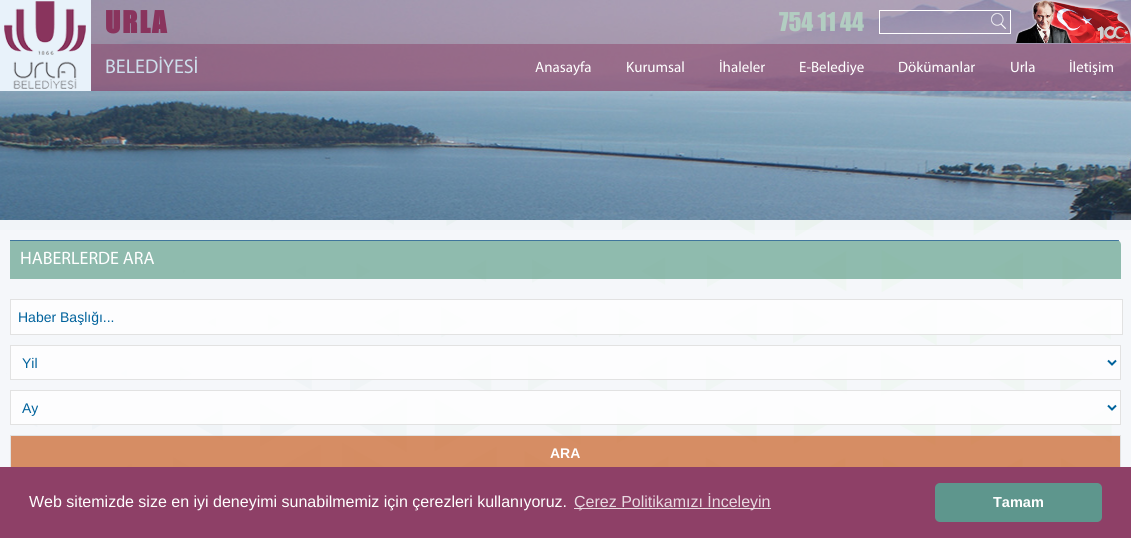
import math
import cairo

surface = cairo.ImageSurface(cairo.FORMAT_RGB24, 1131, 538)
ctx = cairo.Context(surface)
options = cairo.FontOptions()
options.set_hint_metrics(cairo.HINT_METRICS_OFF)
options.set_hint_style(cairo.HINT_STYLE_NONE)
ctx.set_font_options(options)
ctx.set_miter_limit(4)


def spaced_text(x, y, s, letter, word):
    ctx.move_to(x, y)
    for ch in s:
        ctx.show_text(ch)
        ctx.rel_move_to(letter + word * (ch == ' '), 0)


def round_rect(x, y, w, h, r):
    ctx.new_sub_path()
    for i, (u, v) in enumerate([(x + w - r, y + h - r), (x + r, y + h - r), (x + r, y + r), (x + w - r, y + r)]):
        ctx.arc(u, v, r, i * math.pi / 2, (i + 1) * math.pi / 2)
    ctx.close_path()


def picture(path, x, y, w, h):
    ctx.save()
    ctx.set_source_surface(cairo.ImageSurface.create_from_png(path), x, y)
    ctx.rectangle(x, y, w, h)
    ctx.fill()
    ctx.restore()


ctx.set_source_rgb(0.945, 0.957, 0.969)
ctx.paint()
picture("img1.png", 6, 220, 1106, 247)
picture("img2.png", 0, 0, 1131, 220)
picture("img3.png", 0, 0, 91, 91)
ctx.set_source_rgba(0.537, 0.204, 0.365, 0.3)
ctx.rectangle(91, 0, 1040, 44)
ctx.fill()
ctx.select_font_face("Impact", cairo.FONT_SLANT_NORMAL, cairo.FONT_WEIGHT_BOLD)
ctx.set_font_size(28)
ctx.set_source_rgb(0.537, 0.204, 0.365)
spaced_text(105, 33, "URLA", 2, 0)
ctx.select_font_face("Impact")
ctx.set_font_size(24)
ctx.set_source_rgb(0.698, 0.804, 0.757)
ctx.move_to(779, 31)
ctx.show_text("754 11 44")
ctx.rectangle(879.5, 10.5, 131, 23)
ctx.set_source_rgb(1, 1, 1)
ctx.set_line_width(1)
ctx.stroke()
picture("img4.png", 991, 13, 15, 16)
picture("img5.png", 1016, 0, 115, 43)
ctx.set_source_rgba(0.537, 0.204, 0.365, 0.6)
ctx.rectangle(91, 44, 1040, 47)
ctx.fill()
ctx.select_font_face("Myriad")
ctx.set_font_size(20)
ctx.set_source_rgb(0.804, 0.871, 0.918)
ctx.move_to(105, 73)
ctx.show_text("BELEDİYESİ")
ctx.set_font_size(15)
ctx.set_source_rgb(1, 1, 1)
ctx.move_to(535, 72)
ctx.show_text("Anasayfa")
ctx.move_to(626, 72)
ctx.show_text("Kurumsal")
ctx.move_to(719, 72)
ctx.show_text("İhaleler")
ctx.move_to(799, 72)
ctx.show_text("E-Belediye")
ctx.move_to(898, 72)
ctx.show_text("Dökümanlar")
ctx.move_to(1010, 72)
ctx.show_text("Urla")
ctx.move_to(1069, 72)
ctx.show_text("İletişim")
ctx.set_source_rgba(1, 1, 1, 0.3)
ctx.rectangle(0, 230, 1131, 237)
ctx.fill()
ctx.set_source_rgba(0.392, 0.635, 0.557, 0.7)
ctx.new_path()
ctx.move_to(10, 240)
ctx.line_to(1116, 240)
ctx.curve_to(1119, 240, 1121, 242, 1121, 245)
ctx.line_to(1121, 279)
ctx.line_to(10, 279)
ctx.close_path()
ctx.fill()
ctx.set_source_rgba(0.082, 0.314, 0.576, 0.65)
ctx.rectangle(10, 240, 1109, 1)
ctx.fill()
ctx.set_font_size(18)
ctx.set_source_rgb(1, 1, 1)
ctx.move_to(20, 264)
ctx.show_text("HABERLERDE ARA")
ctx.set_source_rgba(1, 1, 1, 0.8)
ctx.rectangle(10.5, 299.5, 1112, 35)
ctx.fill_preserve()
ctx.set_source_rgb(0.886, 0.886, 0.886)
ctx.stroke()
ctx.select_font_face("Liberation Sans")
ctx.set_font_size(14)
ctx.set_source_rgb(0, 0.384, 0.612)
ctx.move_to(18, 322)
ctx.show_text("Haber Başlığı...")
ctx.set_source_rgba(1, 1, 1, 0.8)
ctx.rectangle(10.5, 345.5, 1110, 34)
ctx.fill_preserve()
ctx.set_source_rgb(0.886, 0.886, 0.886)
ctx.stroke()
ctx.new_path()
ctx.move_to(1108, 360.5)
ctx.line_to(1112, 364.5)
ctx.line_to(1116, 360.5)
ctx.set_source_rgb(0, 0.384, 0.612)
ctx.set_line_width(2)
ctx.stroke()
ctx.move_to(22, 368)
ctx.show_text("Yil")
ctx.set_source_rgba(1, 1, 1, 0.8)
ctx.rectangle(10.5, 390.5, 1110, 34)
ctx.fill_preserve()
ctx.set_source_rgb(0.886, 0.886, 0.886)
ctx.set_line_width(1)
ctx.stroke()
ctx.new_path()
ctx.move_to(1108, 405.5)
ctx.line_to(1112, 409.5)
ctx.line_to(1116, 405.5)
ctx.set_source_rgb(0, 0.384, 0.612)
ctx.set_line_width(2)
ctx.stroke()
ctx.move_to(22, 413)
ctx.show_text("Ay")
ctx.set_source_rgba(0.792, 0.376, 0.141, 0.7)
ctx.rectangle(11, 436, 1109, 31)
ctx.fill()
ctx.rectangle(10.5, 435.5, 1110, 34)
ctx.set_source_rgb(0.886, 0.886, 0.886)
ctx.set_line_width(1)
ctx.stroke()
ctx.select_font_face("Liberation Sans", cairo.FONT_SLANT_NORMAL, cairo.FONT_WEIGHT_BOLD)
ctx.set_source_rgb(1, 1, 1)
ctx.move_to(550, 458)
ctx.show_text("ARA")
ctx.set_source_rgb(0.557, 0.251, 0.404)
ctx.rectangle(0, 467, 1131, 71)
ctx.fill()
ctx.select_font_face("Liberation Sans")
ctx.set_font_size(16)
ctx.set_source_rgb(1, 1, 1)
ctx.move_to(29, 507)
ctx.show_text("Web sitemizde size en iyi deneyimi sunabilmemiz için çerezleri kullanıyoruz.")
ctx.set_source_rgb(0.91, 0.851, 0.882)
ctx.rectangle(574, 508, 197, 1)
ctx.fill()
ctx.move_to(574, 507)
ctx.show_text("Çerez Politikamızı İnceleyin")
ctx.set_source_rgb(0.369, 0.588, 0.553)
round_rect(935, 483, 167, 39, 5)
ctx.fill()
ctx.select_font_face("Liberation Sans", cairo.FONT_SLANT_NORMAL, cairo.FONT_WEIGHT_BOLD)
ctx.set_font_size(14.5)
ctx.set_source_rgb(1, 1, 1)
ctx.move_to(993, 507)
ctx.show_text("Tamam")
surface.write_to_png("page.png")
